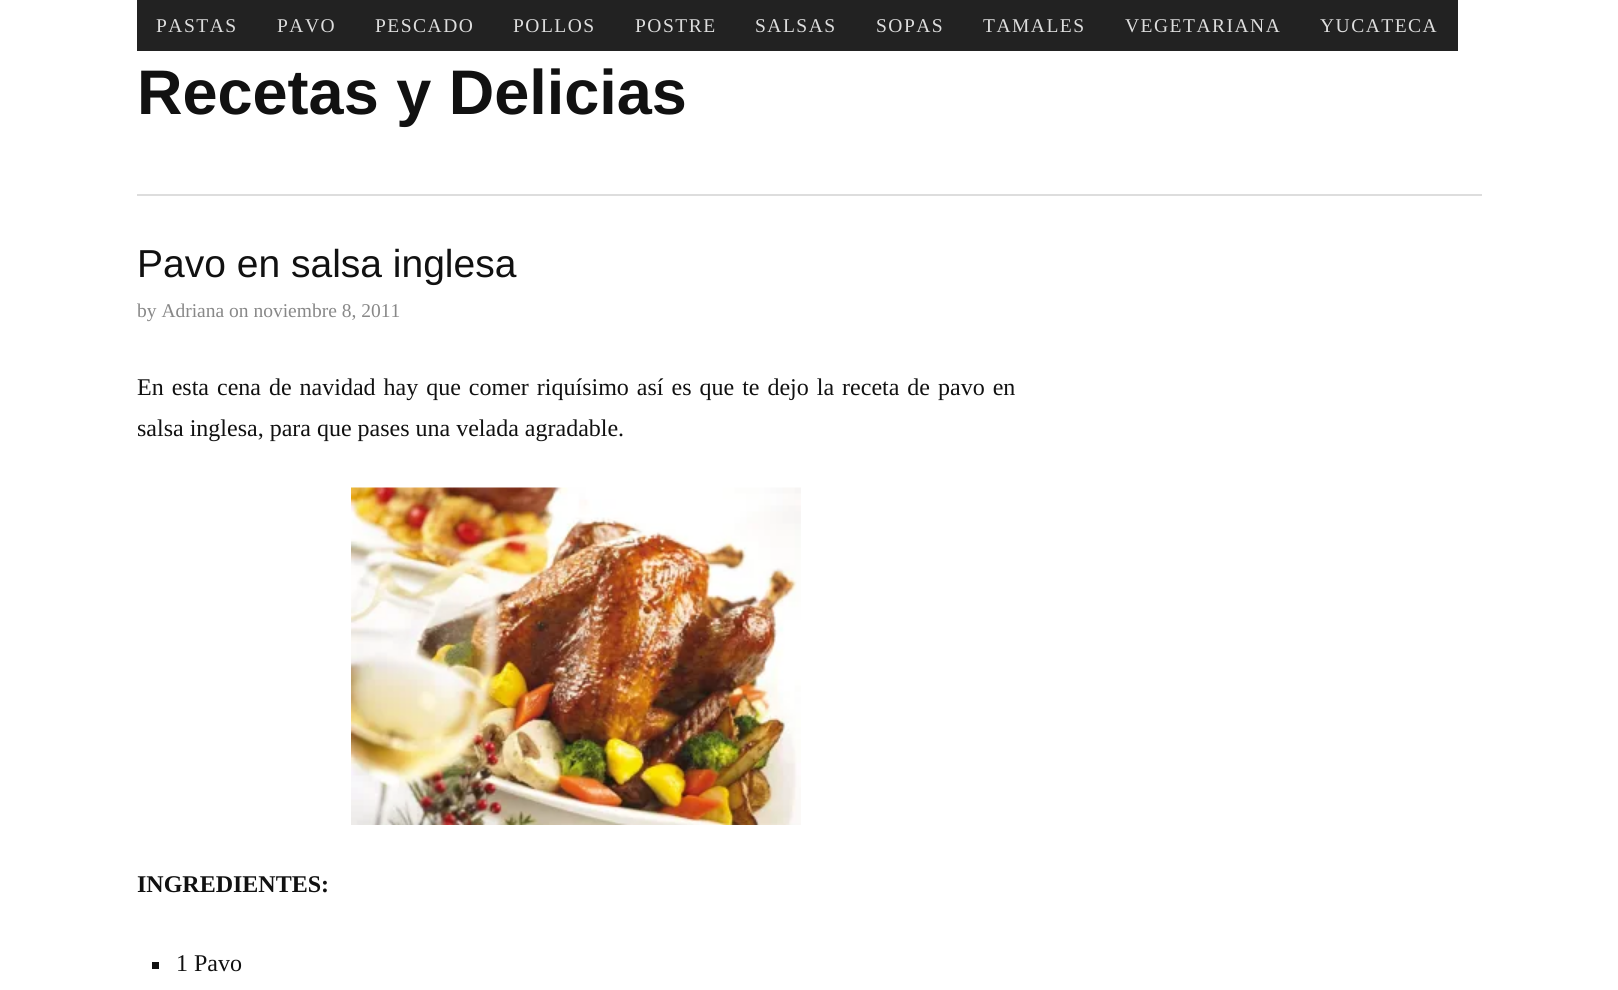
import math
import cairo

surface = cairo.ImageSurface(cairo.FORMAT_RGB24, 1618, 990)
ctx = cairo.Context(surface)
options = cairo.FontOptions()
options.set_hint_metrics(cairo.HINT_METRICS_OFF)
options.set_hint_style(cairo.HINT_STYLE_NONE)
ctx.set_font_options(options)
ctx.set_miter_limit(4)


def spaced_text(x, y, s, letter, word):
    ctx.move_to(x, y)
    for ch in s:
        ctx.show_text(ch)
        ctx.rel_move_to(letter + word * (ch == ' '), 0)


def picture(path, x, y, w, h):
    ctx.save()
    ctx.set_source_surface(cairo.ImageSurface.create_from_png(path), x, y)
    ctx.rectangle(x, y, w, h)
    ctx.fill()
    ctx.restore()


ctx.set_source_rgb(1, 1, 1)
ctx.paint()
ctx.set_source_rgb(0.133, 0.133, 0.133)
ctx.rectangle(137, 0, 1321, 51)
ctx.fill()
ctx.select_font_face("Liberation Serif")
ctx.set_font_size(19.5)
ctx.set_source_rgb(0.867, 0.867, 0.867)
spaced_text(156, 32, "PASTAS", 1.5, 0)
spaced_text(277, 32, "PAVO", 1.5, 0)
spaced_text(375, 32, "PESCADO", 1.5, 0)
spaced_text(513, 32, "POLLOS", 1.5, 0)
spaced_text(635, 32, "POSTRE", 1.5, 0)
spaced_text(755, 32, "SALSAS", 1.5, 0)
spaced_text(876, 32, "SOPAS", 1.5, 0)
spaced_text(983, 32, "TAMALES", 1.5, 0)
spaced_text(1125, 32, "VEGETARIANA", 1.5, 0)
spaced_text(1320, 32, "YUCATECA", 1.5, 0)
ctx.rectangle(137, 194, 1345, 2)
ctx.fill()
ctx.select_font_face("Liberation Sans", cairo.FONT_SLANT_NORMAL, cairo.FONT_WEIGHT_BOLD)
ctx.set_font_size(63)
ctx.set_source_rgb(0.067, 0.067, 0.067)
ctx.move_to(137, 114)
ctx.show_text("Recetas y Delicias")
ctx.select_font_face("Liberation Sans")
ctx.set_font_size(39)
ctx.move_to(137, 277)
ctx.show_text("Pavo en salsa inglesa")
ctx.select_font_face("Liberation Serif")
ctx.set_font_size(19.5)
ctx.set_source_rgb(0.533, 0.533, 0.533)
ctx.move_to(137, 317)
ctx.show_text("by Adriana on noviembre 8, 2011")
ctx.set_font_size(24)
ctx.set_source_rgb(0.067, 0.067, 0.067)
spaced_text(137, 395, "En esta cena de navidad hay que comer riquísimo así es que te dejo la receta de pavo en", 0, 2)
ctx.move_to(137, 436)
ctx.show_text("salsa inglesa, para que pases una velada agradable.")
picture("img1.png", 351, 487, 450, 338)
ctx.select_font_face("Liberation Serif", cairo.FONT_SLANT_NORMAL, cairo.FONT_WEIGHT_BOLD)
ctx.move_to(137, 892)
ctx.show_text("INGREDIENTES:")
ctx.rectangle(152, 962, 7, 7)
ctx.fill()
ctx.select_font_face("Liberation Serif")
ctx.move_to(176, 971)
ctx.show_text("1 Pavo")
surface.write_to_png("page.png")
